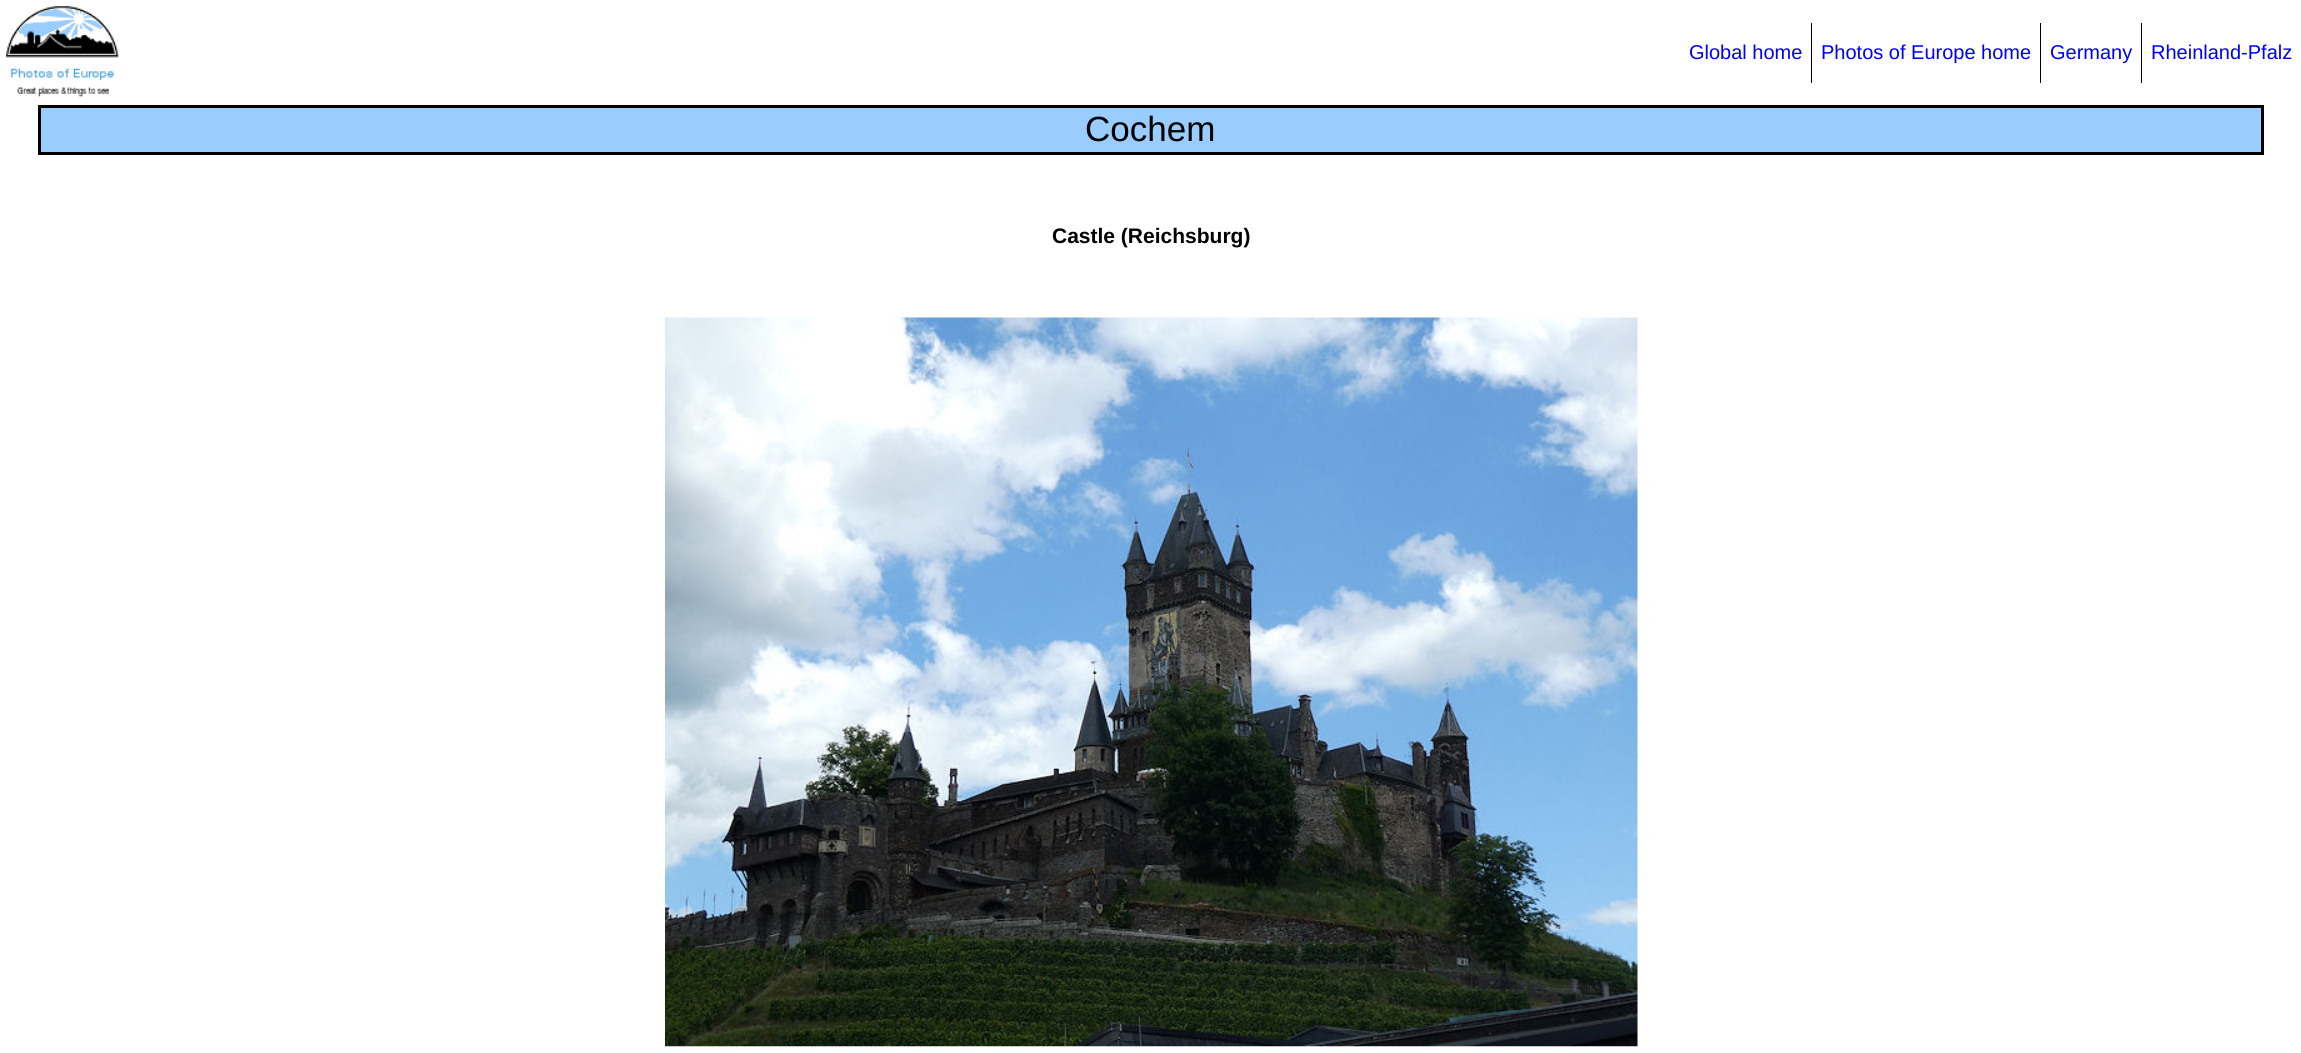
import math
import cairo

surface = cairo.ImageSurface(cairo.FORMAT_RGB24, 2301, 1053)
ctx = cairo.Context(surface)
options = cairo.FontOptions()
options.set_hint_metrics(cairo.HINT_METRICS_OFF)
options.set_hint_style(cairo.HINT_STYLE_NONE)
ctx.set_font_options(options)
ctx.set_miter_limit(4)


def picture(path, x, y, w, h):
    ctx.save()
    ctx.set_source_surface(cairo.ImageSurface.create_from_png(path), x, y)
    ctx.rectangle(x, y, w, h)
    ctx.fill()
    ctx.restore()


ctx.set_source_rgb(1, 1, 1)
ctx.paint()
picture("img1.png", 5, 6, 114, 91)
ctx.set_source_rgb(0, 0, 0)
ctx.rectangle(1811, 23, 1, 60)
ctx.fill()
ctx.select_font_face("Liberation Sans")
ctx.set_font_size(20)
ctx.set_source_rgb(0, 0, 1)
ctx.move_to(1689, 59)
ctx.show_text("Global home")
ctx.set_source_rgb(0, 0, 0)
ctx.rectangle(2040, 23, 1, 60)
ctx.fill()
ctx.set_source_rgb(0, 0, 1)
ctx.move_to(1821, 59)
ctx.show_text("Photos of Europe home")
ctx.set_source_rgb(0, 0, 0)
ctx.rectangle(2141, 23, 1, 60)
ctx.fill()
ctx.set_source_rgb(0, 0, 1)
ctx.move_to(2050, 59)
ctx.show_text("Germany")
ctx.move_to(2151, 59)
ctx.show_text("Rheinland-Pfalz")
ctx.set_source_rgb(0.6, 0.8, 1)
ctx.rectangle(39.5, 106.5, 2223, 47)
ctx.fill_preserve()
ctx.set_source_rgb(0, 0, 0)
ctx.set_line_width(3)
ctx.stroke()
ctx.set_font_size(35)
ctx.move_to(1085, 141)
ctx.show_text("Cochem")
ctx.select_font_face("Liberation Sans", cairo.FONT_SLANT_NORMAL, cairo.FONT_WEIGHT_BOLD)
ctx.set_font_size(21)
ctx.move_to(1052, 243)
ctx.show_text("Castle (Reichsburg)")
picture("img2.png", 665, 317, 973, 730)
surface.write_to_png("page.png")
